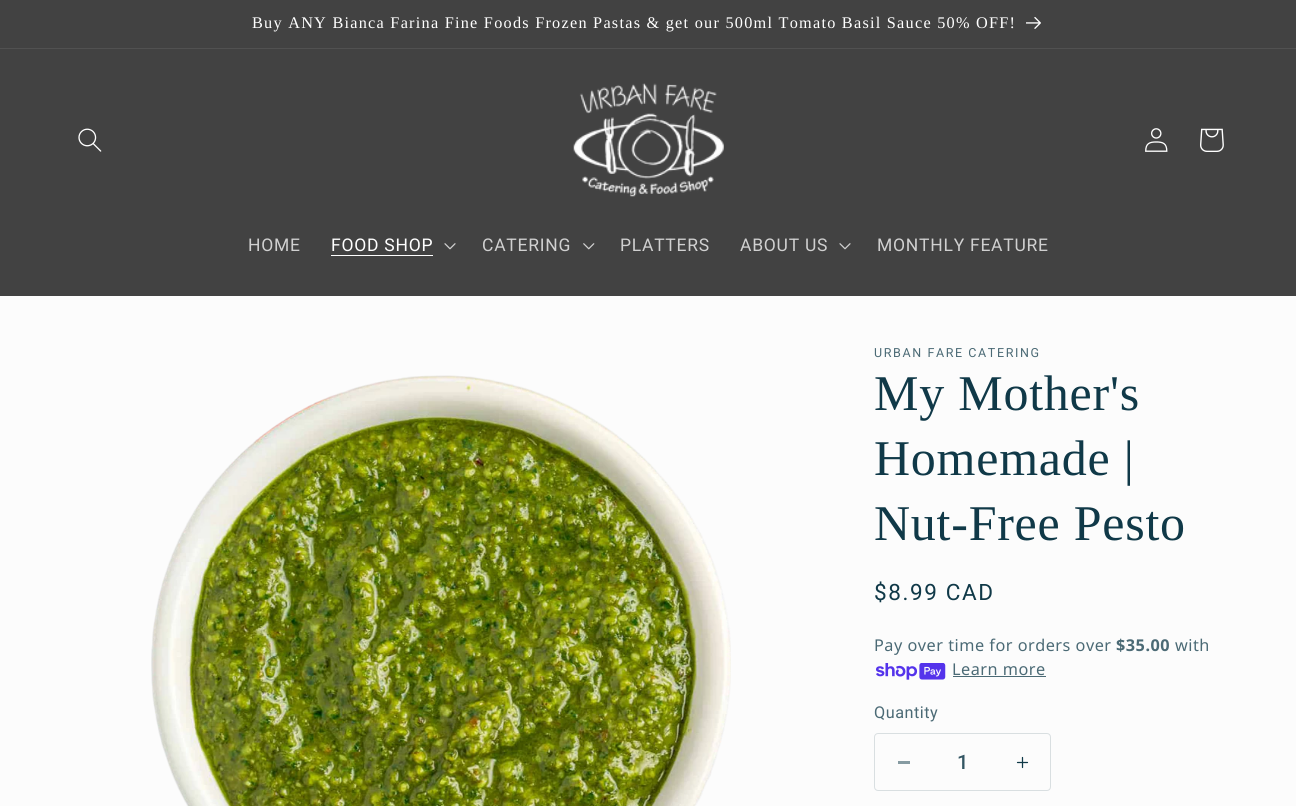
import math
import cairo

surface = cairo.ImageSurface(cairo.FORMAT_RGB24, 1296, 806)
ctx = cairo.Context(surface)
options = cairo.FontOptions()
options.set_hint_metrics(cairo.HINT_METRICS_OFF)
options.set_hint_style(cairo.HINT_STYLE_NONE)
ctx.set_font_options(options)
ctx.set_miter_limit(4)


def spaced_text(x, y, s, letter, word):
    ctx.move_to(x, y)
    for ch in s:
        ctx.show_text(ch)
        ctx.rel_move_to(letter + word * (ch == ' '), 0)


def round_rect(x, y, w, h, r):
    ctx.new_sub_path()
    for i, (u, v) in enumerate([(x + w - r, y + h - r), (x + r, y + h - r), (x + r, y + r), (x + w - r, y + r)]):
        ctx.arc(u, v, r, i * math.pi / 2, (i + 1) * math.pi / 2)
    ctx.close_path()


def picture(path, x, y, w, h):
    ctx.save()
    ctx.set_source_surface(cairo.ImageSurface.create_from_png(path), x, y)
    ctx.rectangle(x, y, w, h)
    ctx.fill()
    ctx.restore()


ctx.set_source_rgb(0.988, 0.988, 0.988)
ctx.paint()
ctx.set_source_rgb(0.259, 0.259, 0.259)
ctx.rectangle(0, 0, 1296, 48)
ctx.fill()
ctx.set_source_rgb(0.318, 0.318, 0.318)
ctx.rectangle(0, 48, 1296, 1)
ctx.fill()
ctx.select_font_face("Liberation Serif")
ctx.set_font_size(16.25)
ctx.set_source_rgb(1, 1, 1)
spaced_text(252, 28, "Buy ANY Bianca Farina Fine Foods Frozen Pastas & get our 500ml Tomato Basil Sauce 50% OFF!", 1.25, 0)
picture("img1.png", 1026, 17, 15, 12)
ctx.set_source_rgb(0.259, 0.259, 0.259)
ctx.rectangle(0, 49, 1296, 247)
ctx.fill()
picture("img2.png", 78, 128, 24, 24)
picture("img3.png", 573, 83, 151, 114)
picture("img4.png", 1145, 128, 23, 24)
picture("img5.png", 1200, 128, 24, 24)
ctx.select_font_face("Roboto")
ctx.set_font_size(17.5)
ctx.set_source_rgb(0.816, 0.816, 0.816)
spaced_text(248, 251, "HOME", 0.75, 0)
ctx.set_source_rgb(1, 1, 1)
spaced_text(331, 251, "FOOD SHOP", 0.75, 0)
ctx.rectangle(331, 255, 102, 1)
ctx.fill()
picture("img6.png", 444, 243, 12, 7)
ctx.set_source_rgb(0.816, 0.816, 0.816)
spaced_text(482, 251, "CATERING", 0.75, 0)
picture("img7.png", 583, 243, 12, 7)
spaced_text(620, 251, "PLATTERS", 0.75, 0)
spaced_text(740, 251, "ABOUT US", 0.75, 0)
picture("img6.png", 839, 243, 12, 7)
spaced_text(877, 251, "MONTHLY FEATURE", 0.75, 0)
picture("img8.png", 151, 375, 580, 431)
ctx.set_font_size(12.5)
ctx.set_source_rgb(0.294, 0.416, 0.459)
spaced_text(874, 357, "URBAN FARE CATERING", 1.6, 0)
ctx.select_font_face("Liberation Serif")
ctx.set_font_size(50)
ctx.set_source_rgb(0.063, 0.224, 0.282)
spaced_text(874, 410, "My Mother's", 0.75, 0)
spaced_text(874, 475, "Homemade |", 0.75, 0)
spaced_text(874, 540, "Nut-Free Pesto", 0.75, 0)
ctx.select_font_face("Roboto")
ctx.set_font_size(22.5)
spaced_text(874, 600, "$8.99 CAD", 1.6, 0)
ctx.select_font_face("Noto Sans")
ctx.set_font_size(16.25)
ctx.set_source_rgb(0.294, 0.416, 0.459)
spaced_text(874, 651, "Pay over time for orders over", 0.5, 0)
ctx.select_font_face("Noto Sans", cairo.FONT_SLANT_NORMAL, cairo.FONT_WEIGHT_BOLD)
spaced_text(1116, 651, "$35.00", 0.5, 0)
ctx.select_font_face("Noto Sans")
spaced_text(1175, 651, "with", 0.5, 0)
picture("img9.png", 876, 663, 70, 17)
spaced_text(952, 675, "Learn more", 0.5, 0)
ctx.rectangle(953, 676, 93, 1)
ctx.fill()
ctx.select_font_face("Roboto")
spaced_text(874, 718, "Quantity", 0.5, 0)
ctx.set_source_rgb(0.525, 0.608, 0.635)
ctx.rectangle(898, 761, 12, 3)
ctx.fill()
picture("img10.png", 1016, 756, 13, 13)
round_rect(874.5, 733.5, 176, 57, 3.5)
ctx.set_source_rgb(0.851, 0.875, 0.882)
ctx.set_line_width(1)
ctx.stroke()
ctx.select_font_face("Roboto Medium")
ctx.set_font_size(20)
ctx.set_source_rgb(0.2, 0.337, 0.388)
ctx.move_to(957, 769)
ctx.show_text("1")
surface.write_to_png("page.png")
